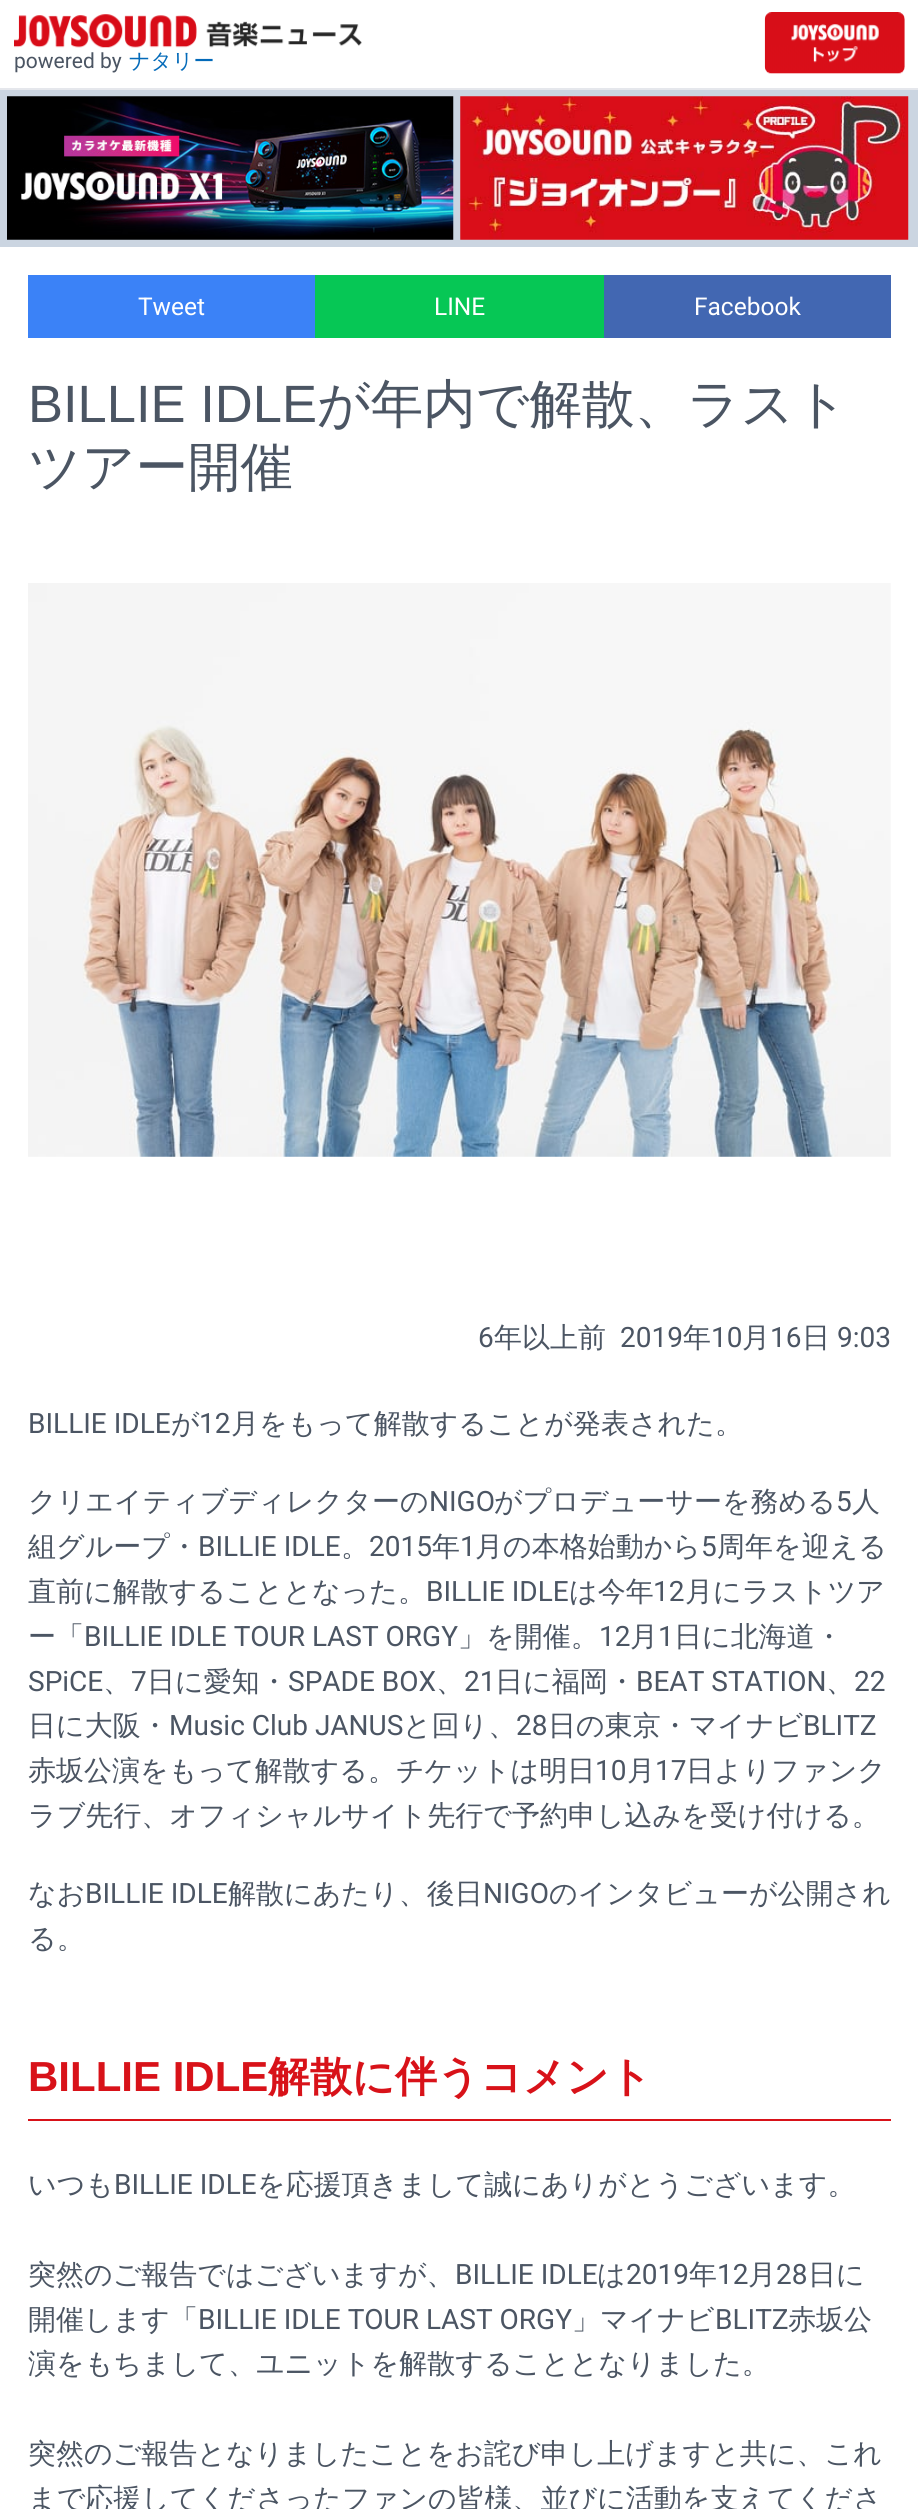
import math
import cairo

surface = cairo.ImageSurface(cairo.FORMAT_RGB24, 918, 2509)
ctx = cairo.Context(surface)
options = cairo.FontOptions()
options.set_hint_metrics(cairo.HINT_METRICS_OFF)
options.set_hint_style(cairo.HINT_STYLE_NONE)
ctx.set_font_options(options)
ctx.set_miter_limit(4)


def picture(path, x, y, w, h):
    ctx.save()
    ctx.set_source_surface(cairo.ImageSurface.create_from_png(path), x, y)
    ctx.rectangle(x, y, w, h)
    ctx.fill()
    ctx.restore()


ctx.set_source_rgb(1, 1, 1)
ctx.paint()
ctx.set_source_rgb(0.898, 0.906, 0.922)
ctx.rectangle(0, 88, 918, 2)
ctx.fill()
picture("img1.png", 14, 14, 348, 34)
ctx.select_font_face("Roboto")
ctx.set_font_size(21)
ctx.set_source_rgb(0.294, 0.333, 0.388)
ctx.move_to(14, 68)
ctx.show_text("powered by")
ctx.select_font_face("WenQuanYi Zen Hei Medium")
ctx.set_source_rgb(0.012, 0.416, 0.725)
ctx.move_to(129, 68)
ctx.show_text("ナタリー")
picture("img2.png", 764, 12, 141, 62)
ctx.set_source_rgb(0.796, 0.835, 0.882)
ctx.rectangle(0, 90, 918, 157)
ctx.fill()
picture("img3.png", 7, 96, 447, 144)
picture("img4.png", 460, 96, 449, 144)
ctx.set_source_rgb(0.231, 0.51, 0.965)
ctx.rectangle(28, 275, 287, 63)
ctx.fill()
ctx.select_font_face("Roboto")
ctx.set_font_size(24.5)
ctx.set_source_rgb(1, 1, 1)
ctx.move_to(138, 315)
ctx.show_text("Tweet")
ctx.set_source_rgb(0.024, 0.78, 0.333)
ctx.rectangle(315, 275, 289, 63)
ctx.fill()
ctx.set_source_rgb(1, 1, 1)
ctx.move_to(434, 315)
ctx.show_text("LINE")
ctx.set_source_rgb(0.259, 0.404, 0.698)
ctx.rectangle(604, 275, 287, 63)
ctx.fill()
ctx.set_source_rgb(1, 1, 1)
ctx.move_to(694, 315)
ctx.show_text("Facebook")
ctx.select_font_face("Liberation Sans")
ctx.set_font_size(52.5)
ctx.set_source_rgb(0.294, 0.333, 0.388)
ctx.move_to(28, 422)
ctx.show_text("BILLIE IDLE")
ctx.select_font_face("WenQuanYi Zen Hei Medium")
ctx.move_to(317, 422)
ctx.show_text("が年内で解散、ラスト")
ctx.move_to(28, 485)
ctx.show_text("ツアー開催")
picture("img5.png", 28, 583, 863, 574)
ctx.select_font_face("Roboto")
ctx.set_font_size(28)
ctx.move_to(478, 1347)
ctx.show_text("6")
ctx.select_font_face("WenQuanYi Zen Hei Medium")
ctx.move_to(494, 1347)
ctx.show_text("年以上前")
ctx.select_font_face("Roboto")
ctx.move_to(620, 1347)
ctx.show_text("2019")
ctx.select_font_face("WenQuanYi Zen Hei Medium")
ctx.move_to(683, 1347)
ctx.show_text("年")
ctx.select_font_face("Roboto")
ctx.move_to(711, 1347)
ctx.show_text("10")
ctx.select_font_face("WenQuanYi Zen Hei Medium")
ctx.move_to(742, 1347)
ctx.show_text("月")
ctx.select_font_face("Roboto")
ctx.move_to(770, 1347)
ctx.show_text("16")
ctx.select_font_face("WenQuanYi Zen Hei Medium")
ctx.move_to(802, 1347)
ctx.show_text("日")
ctx.select_font_face("Roboto")
ctx.move_to(837, 1347)
ctx.show_text("9:03")
ctx.move_to(28, 1433)
ctx.show_text("BILLIE IDLE")
ctx.select_font_face("WenQuanYi Zen Hei Medium")
ctx.move_to(171, 1433)
ctx.show_text("が")
ctx.select_font_face("Roboto")
ctx.move_to(199, 1433)
ctx.show_text("12")
ctx.select_font_face("WenQuanYi Zen Hei Medium")
ctx.move_to(231, 1433)
ctx.show_text("月をもって解散することが発表された。")
ctx.move_to(28, 1511)
ctx.show_text("クリエイティブディレクターの")
ctx.select_font_face("Roboto")
ctx.move_to(429, 1511)
ctx.show_text("NIGO")
ctx.select_font_face("WenQuanYi Zen Hei Medium")
ctx.move_to(494, 1511)
ctx.show_text("がプロデューサーを務める")
ctx.select_font_face("Roboto")
ctx.move_to(836, 1511)
ctx.show_text("5")
ctx.select_font_face("WenQuanYi Zen Hei Medium")
ctx.move_to(852, 1511)
ctx.show_text("人")
ctx.move_to(28, 1556)
ctx.show_text("組グループ・")
ctx.select_font_face("Roboto")
ctx.move_to(198, 1556)
ctx.show_text("BILLIE IDLE")
ctx.select_font_face("WenQuanYi Zen Hei Medium")
ctx.move_to(341, 1556)
ctx.show_text("。")
ctx.select_font_face("Roboto")
ctx.move_to(369, 1556)
ctx.show_text("2015")
ctx.select_font_face("WenQuanYi Zen Hei Medium")
ctx.move_to(432, 1556)
ctx.show_text("年")
ctx.select_font_face("Roboto")
ctx.move_to(460, 1556)
ctx.show_text("1")
ctx.select_font_face("WenQuanYi Zen Hei Medium")
ctx.move_to(475, 1556)
ctx.show_text("月の本格始動から")
ctx.select_font_face("Roboto")
ctx.move_to(701, 1556)
ctx.show_text("5")
ctx.select_font_face("WenQuanYi Zen Hei Medium")
ctx.move_to(717, 1556)
ctx.show_text("周年を迎える")
ctx.move_to(28, 1601)
ctx.show_text("直前に解散することとなった。")
ctx.select_font_face("Roboto")
ctx.move_to(426, 1601)
ctx.show_text("BILLIE IDLE")
ctx.select_font_face("WenQuanYi Zen Hei Medium")
ctx.move_to(569, 1601)
ctx.show_text("は今年")
ctx.select_font_face("Roboto")
ctx.move_to(653, 1601)
ctx.show_text("12")
ctx.select_font_face("WenQuanYi Zen Hei Medium")
ctx.move_to(685, 1601)
ctx.show_text("月にラストツア")
ctx.move_to(28, 1646)
ctx.show_text("ー「")
ctx.select_font_face("Roboto")
ctx.move_to(84, 1646)
ctx.show_text("BILLIE IDLE TOUR LAST ORGY")
ctx.select_font_face("WenQuanYi Zen Hei Medium")
ctx.move_to(458, 1646)
ctx.show_text("」を開催。")
ctx.select_font_face("Roboto")
ctx.move_to(599, 1646)
ctx.show_text("12")
ctx.select_font_face("WenQuanYi Zen Hei Medium")
ctx.move_to(630, 1646)
ctx.show_text("月")
ctx.select_font_face("Roboto")
ctx.move_to(658, 1646)
ctx.show_text("1")
ctx.select_font_face("WenQuanYi Zen Hei Medium")
ctx.move_to(674, 1646)
ctx.show_text("日に北海道・")
ctx.select_font_face("Roboto")
ctx.move_to(28, 1691)
ctx.show_text("SPiCE")
ctx.select_font_face("WenQuanYi Zen Hei Medium")
ctx.move_to(103, 1691)
ctx.show_text("、")
ctx.select_font_face("Roboto")
ctx.move_to(131, 1691)
ctx.show_text("7")
ctx.select_font_face("WenQuanYi Zen Hei Medium")
ctx.move_to(147, 1691)
ctx.show_text("日に愛知・")
ctx.select_font_face("Roboto")
ctx.move_to(288, 1691)
ctx.show_text("SPADE BOX")
ctx.select_font_face("WenQuanYi Zen Hei Medium")
ctx.move_to(436, 1691)
ctx.show_text("、")
ctx.select_font_face("Roboto")
ctx.move_to(464, 1691)
ctx.show_text("21")
ctx.select_font_face("WenQuanYi Zen Hei Medium")
ctx.move_to(495, 1691)
ctx.show_text("日に福岡・")
ctx.select_font_face("Roboto")
ctx.move_to(636, 1691)
ctx.show_text("BEAT STATION")
ctx.select_font_face("WenQuanYi Zen Hei Medium")
ctx.move_to(826, 1691)
ctx.show_text("、")
ctx.select_font_face("Roboto")
ctx.move_to(854, 1691)
ctx.show_text("22")
ctx.select_font_face("WenQuanYi Zen Hei Medium")
ctx.move_to(28, 1735)
ctx.show_text("日に大阪・")
ctx.select_font_face("Roboto")
ctx.move_to(169, 1735)
ctx.show_text("Music Club JANUS")
ctx.select_font_face("WenQuanYi Zen Hei Medium")
ctx.move_to(403, 1735)
ctx.show_text("と回り、")
ctx.select_font_face("Roboto")
ctx.move_to(516, 1735)
ctx.show_text("28")
ctx.select_font_face("WenQuanYi Zen Hei Medium")
ctx.move_to(548, 1735)
ctx.show_text("日の東京・マイナビ")
ctx.select_font_face("Roboto")
ctx.move_to(803, 1735)
ctx.show_text("BLITZ")
ctx.select_font_face("WenQuanYi Zen Hei Medium")
ctx.move_to(28, 1780)
ctx.show_text("赤坂公演をもって解散する。チケットは明日")
ctx.select_font_face("Roboto")
ctx.move_to(595, 1780)
ctx.show_text("10")
ctx.select_font_face("WenQuanYi Zen Hei Medium")
ctx.move_to(627, 1780)
ctx.show_text("月")
ctx.select_font_face("Roboto")
ctx.move_to(655, 1780)
ctx.show_text("17")
ctx.select_font_face("WenQuanYi Zen Hei Medium")
ctx.move_to(686, 1780)
ctx.show_text("日よりファンク")
ctx.move_to(28, 1825)
ctx.show_text("ラブ先行、オフィシャルサイト先行で予約申し込みを受け付ける。")
ctx.move_to(28, 1903)
ctx.show_text("なお")
ctx.select_font_face("Roboto")
ctx.move_to(85, 1903)
ctx.show_text("BILLIE IDLE")
ctx.select_font_face("WenQuanYi Zen Hei Medium")
ctx.move_to(228, 1903)
ctx.show_text("解散にあたり、後日")
ctx.select_font_face("Roboto")
ctx.move_to(483, 1903)
ctx.show_text("NIGO")
ctx.select_font_face("WenQuanYi Zen Hei Medium")
ctx.move_to(549, 1903)
ctx.show_text("のインタビューが公開され")
ctx.move_to(28, 1948)
ctx.show_text("る。")
ctx.set_source_rgb(0.847, 0.071, 0.098)
ctx.rectangle(28, 2119, 863, 2)
ctx.fill()
ctx.select_font_face("Liberation Sans", cairo.FONT_SLANT_NORMAL, cairo.FONT_WEIGHT_BOLD)
ctx.set_font_size(42)
ctx.move_to(28, 2091)
ctx.show_text("BILLIE IDLE")
ctx.select_font_face("WenQuanYi Zen Hei", cairo.FONT_SLANT_NORMAL, cairo.FONT_WEIGHT_BOLD)
ctx.move_to(268, 2091)
ctx.show_text("解散に伴うコメント")
ctx.select_font_face("WenQuanYi Zen Hei Medium")
ctx.set_font_size(28)
ctx.set_source_rgb(0.294, 0.333, 0.388)
ctx.move_to(28, 2194)
ctx.show_text("いつも")
ctx.select_font_face("Roboto")
ctx.move_to(114, 2194)
ctx.show_text("BILLIE IDLE")
ctx.select_font_face("WenQuanYi Zen Hei Medium")
ctx.move_to(257, 2194)
ctx.show_text("を応援頂きまして誠にありがとうございます。")
ctx.move_to(28, 2284)
ctx.show_text("突然のご報告ではございますが、")
ctx.select_font_face("Roboto")
ctx.move_to(455, 2284)
ctx.show_text("BILLIE IDLE")
ctx.select_font_face("WenQuanYi Zen Hei Medium")
ctx.move_to(597, 2284)
ctx.show_text("は")
ctx.select_font_face("Roboto")
ctx.move_to(626, 2284)
ctx.show_text("2019")
ctx.select_font_face("WenQuanYi Zen Hei Medium")
ctx.move_to(689, 2284)
ctx.show_text("年")
ctx.select_font_face("Roboto")
ctx.move_to(717, 2284)
ctx.show_text("12")
ctx.select_font_face("WenQuanYi Zen Hei Medium")
ctx.move_to(748, 2284)
ctx.show_text("月")
ctx.select_font_face("Roboto")
ctx.move_to(776, 2284)
ctx.show_text("28")
ctx.select_font_face("WenQuanYi Zen Hei Medium")
ctx.move_to(808, 2284)
ctx.show_text("日に")
ctx.move_to(28, 2329)
ctx.show_text("開催します「")
ctx.select_font_face("Roboto")
ctx.move_to(198, 2329)
ctx.show_text("BILLIE IDLE TOUR LAST ORGY")
ctx.select_font_face("WenQuanYi Zen Hei Medium")
ctx.move_to(572, 2329)
ctx.show_text("」マイナビ")
ctx.select_font_face("Roboto")
ctx.move_to(715, 2329)
ctx.show_text("BLITZ")
ctx.select_font_face("WenQuanYi Zen Hei Medium")
ctx.move_to(788, 2329)
ctx.show_text("赤坂公")
ctx.move_to(28, 2373)
ctx.show_text("演をもちまして、ユニットを解散することとなりました。")
ctx.move_to(28, 2463)
ctx.show_text("突然のご報告となりましたことをお詫び申し上げますと共に、これ")
ctx.move_to(28, 2508)
ctx.show_text("まで応援してくださったファンの皆様、並びに活動を支えてくださ")
surface.write_to_png("page.png")
